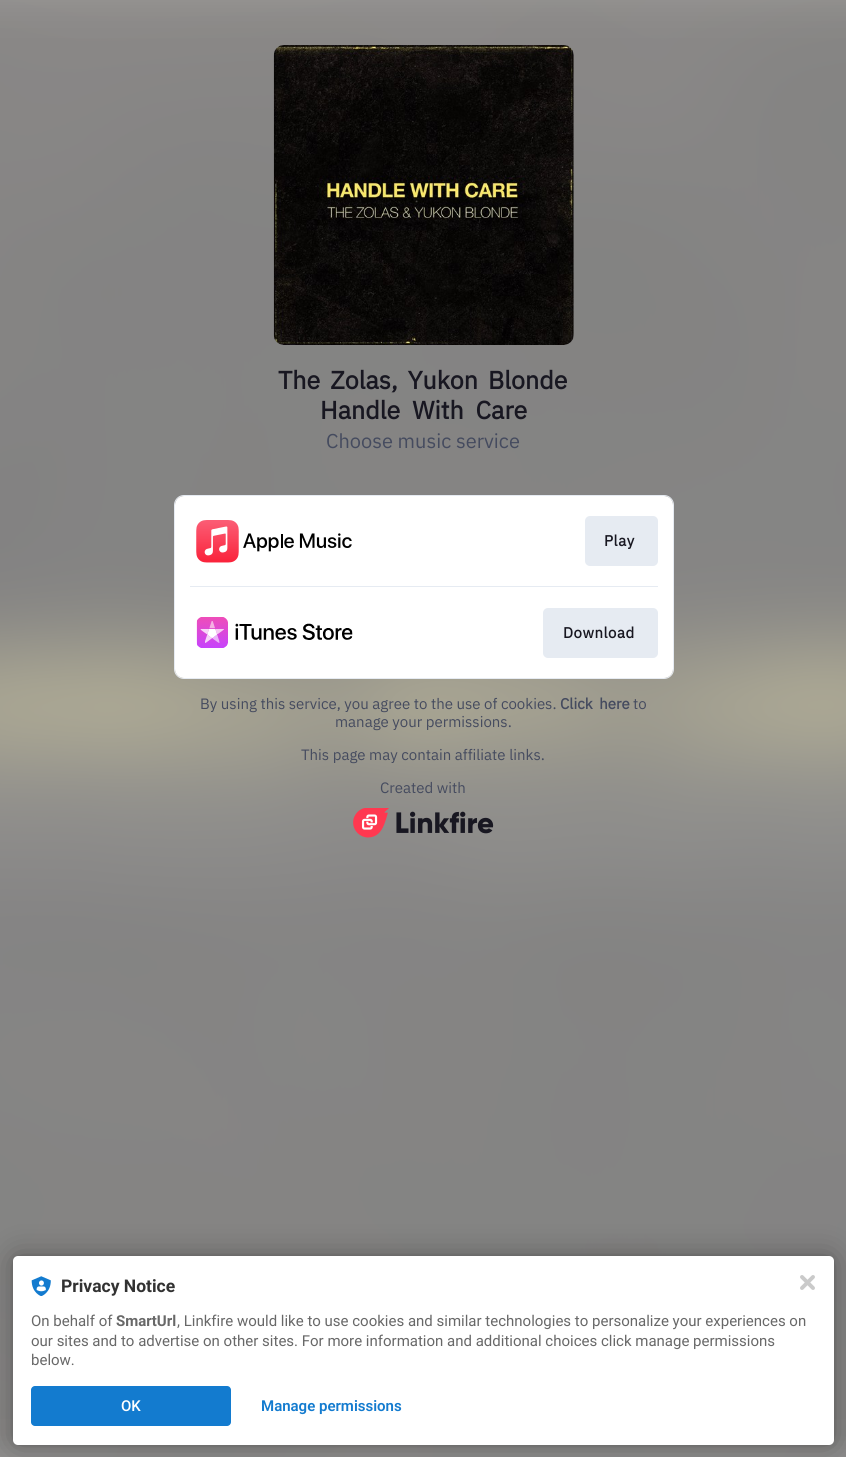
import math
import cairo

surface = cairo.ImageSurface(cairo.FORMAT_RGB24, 846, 1457)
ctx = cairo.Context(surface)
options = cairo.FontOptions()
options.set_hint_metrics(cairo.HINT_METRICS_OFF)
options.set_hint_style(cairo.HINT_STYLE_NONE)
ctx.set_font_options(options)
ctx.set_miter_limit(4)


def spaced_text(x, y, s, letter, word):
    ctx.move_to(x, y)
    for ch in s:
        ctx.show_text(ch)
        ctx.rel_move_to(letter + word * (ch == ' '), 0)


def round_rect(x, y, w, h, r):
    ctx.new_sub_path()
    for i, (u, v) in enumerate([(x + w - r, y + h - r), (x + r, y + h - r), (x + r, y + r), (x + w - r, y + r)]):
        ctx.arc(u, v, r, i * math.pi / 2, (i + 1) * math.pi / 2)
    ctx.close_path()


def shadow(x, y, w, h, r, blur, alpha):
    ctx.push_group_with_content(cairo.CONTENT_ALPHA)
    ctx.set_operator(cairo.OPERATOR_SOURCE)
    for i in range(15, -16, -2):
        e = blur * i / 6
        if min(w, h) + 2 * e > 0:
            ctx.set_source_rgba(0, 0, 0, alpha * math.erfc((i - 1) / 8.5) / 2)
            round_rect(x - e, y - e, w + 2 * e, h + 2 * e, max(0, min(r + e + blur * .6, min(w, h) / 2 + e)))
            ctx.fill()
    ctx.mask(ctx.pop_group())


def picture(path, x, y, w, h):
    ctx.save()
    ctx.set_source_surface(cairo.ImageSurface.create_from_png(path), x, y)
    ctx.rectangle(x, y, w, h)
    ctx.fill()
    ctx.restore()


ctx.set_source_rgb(1, 1, 1)
ctx.paint()
picture("img1.png", 0, 0, 846, 1457)
picture("img2.png", 273, 45, 301, 300)
ctx.select_font_face("IBM Plex Sans", cairo.FONT_SLANT_NORMAL, cairo.FONT_WEIGHT_BOLD)
ctx.set_font_size(25)
ctx.set_source_rgb(0.094, 0.09, 0.129)
spaced_text(278, 389, "The Zolas, Yukon Blonde", 0, 4)
spaced_text(320, 419, "Handle With Care", 0, 6)
ctx.select_font_face("IBM Plex Sans")
ctx.set_font_size(20)
ctx.set_source_rgb(0.271, 0.294, 0.373)
ctx.move_to(326, 448)
ctx.show_text("Choose music service")
round_rect(174.5, 495.5, 499, 183, 9.5)
ctx.set_source_rgb(0.902, 0.918, 0.949)
ctx.set_line_width(1)
ctx.stroke()
ctx.set_source_rgb(1, 1, 1)
round_rect(175, 496, 498, 182, 9)
ctx.fill()
picture("img3.png", 196, 520, 156, 43)
ctx.set_source_rgb(0.902, 0.918, 0.949)
round_rect(585, 516, 73, 50, 5)
ctx.fill()
ctx.select_font_face("IBM Plex Sans", cairo.FONT_SLANT_NORMAL, cairo.FONT_WEIGHT_BOLD)
ctx.set_font_size(15)
ctx.set_source_rgb(0.094, 0.09, 0.129)
spaced_text(604, 546, "Play", 0.5, 0)
ctx.set_source_rgb(0.902, 0.918, 0.949)
ctx.rectangle(190, 586, 468, 1)
ctx.fill()
picture("img4.png", 196, 617, 157, 31)
round_rect(543, 608, 115, 50, 5)
ctx.fill()
ctx.set_source_rgb(0.094, 0.09, 0.129)
spaced_text(563, 638, "Download", 0.5, 0)
ctx.select_font_face("IBM Plex Sans")
ctx.set_source_rgb(0.271, 0.294, 0.373)
ctx.move_to(200, 709)
ctx.show_text("By using this service, you agree to the use of cookies.")
ctx.select_font_face("IBM Plex Sans", cairo.FONT_SLANT_NORMAL, cairo.FONT_WEIGHT_BOLD)
spaced_text(560, 709, "Click here", 0, 3)
ctx.select_font_face("IBM Plex Sans")
ctx.move_to(633, 709)
ctx.show_text("to")
ctx.move_to(335, 727)
ctx.show_text("manage your permissions.")
ctx.move_to(301, 760)
ctx.show_text("This page may contain affiliate links.")
ctx.move_to(380, 793)
ctx.show_text("Created with")
picture("img5.png", 353, 808, 141, 30)
ctx.set_source_rgb(0, 0, 0)
shadow(13, 1256, 821, 189, 5, 2.5, 0.12)
shadow(13, 1256, 821, 189, 5, 15, 0.3)
ctx.set_source_rgb(1, 1, 1)
round_rect(13, 1256, 821, 189, 5)
ctx.fill()
picture("img6.png", 31, 1276, 20, 20)
ctx.select_font_face("Roboto", cairo.FONT_SLANT_NORMAL, cairo.FONT_WEIGHT_BOLD)
ctx.set_font_size(17.5)
ctx.set_source_rgb(0.196, 0.196, 0.196)
ctx.move_to(61, 1292)
ctx.show_text("Privacy Notice")
ctx.select_font_face("Roboto")
ctx.set_font_size(15)
ctx.set_source_rgb(0.408, 0.408, 0.408)
ctx.move_to(31, 1326)
ctx.show_text("On behalf of")
ctx.select_font_face("Roboto", cairo.FONT_SLANT_NORMAL, cairo.FONT_WEIGHT_BOLD)
ctx.move_to(116, 1326)
ctx.show_text("SmartUrl")
ctx.select_font_face("Roboto")
ctx.move_to(177, 1326)
ctx.show_text(", Linkfire would like to use cookies and similar technologies to personalize your experiences on")
ctx.move_to(31, 1346)
ctx.show_text("our sites and to advertise on other sites. For more information and additional choices click manage permissions")
ctx.move_to(31, 1365)
ctx.show_text("below.")
ctx.set_source_rgb(0.075, 0.482, 0.812)
round_rect(31, 1386, 200, 40, 4)
ctx.fill()
ctx.select_font_face("Roboto Medium")
ctx.set_source_rgb(1, 1, 1)
ctx.move_to(121, 1411)
ctx.show_text("OK")
ctx.select_font_face("Roboto SemiBold")
ctx.set_source_rgb(0.075, 0.482, 0.812)
ctx.move_to(261, 1411)
ctx.show_text("Manage permissions")
picture("img7.png", 800, 1275, 15, 15)
surface.write_to_png("page.png")
